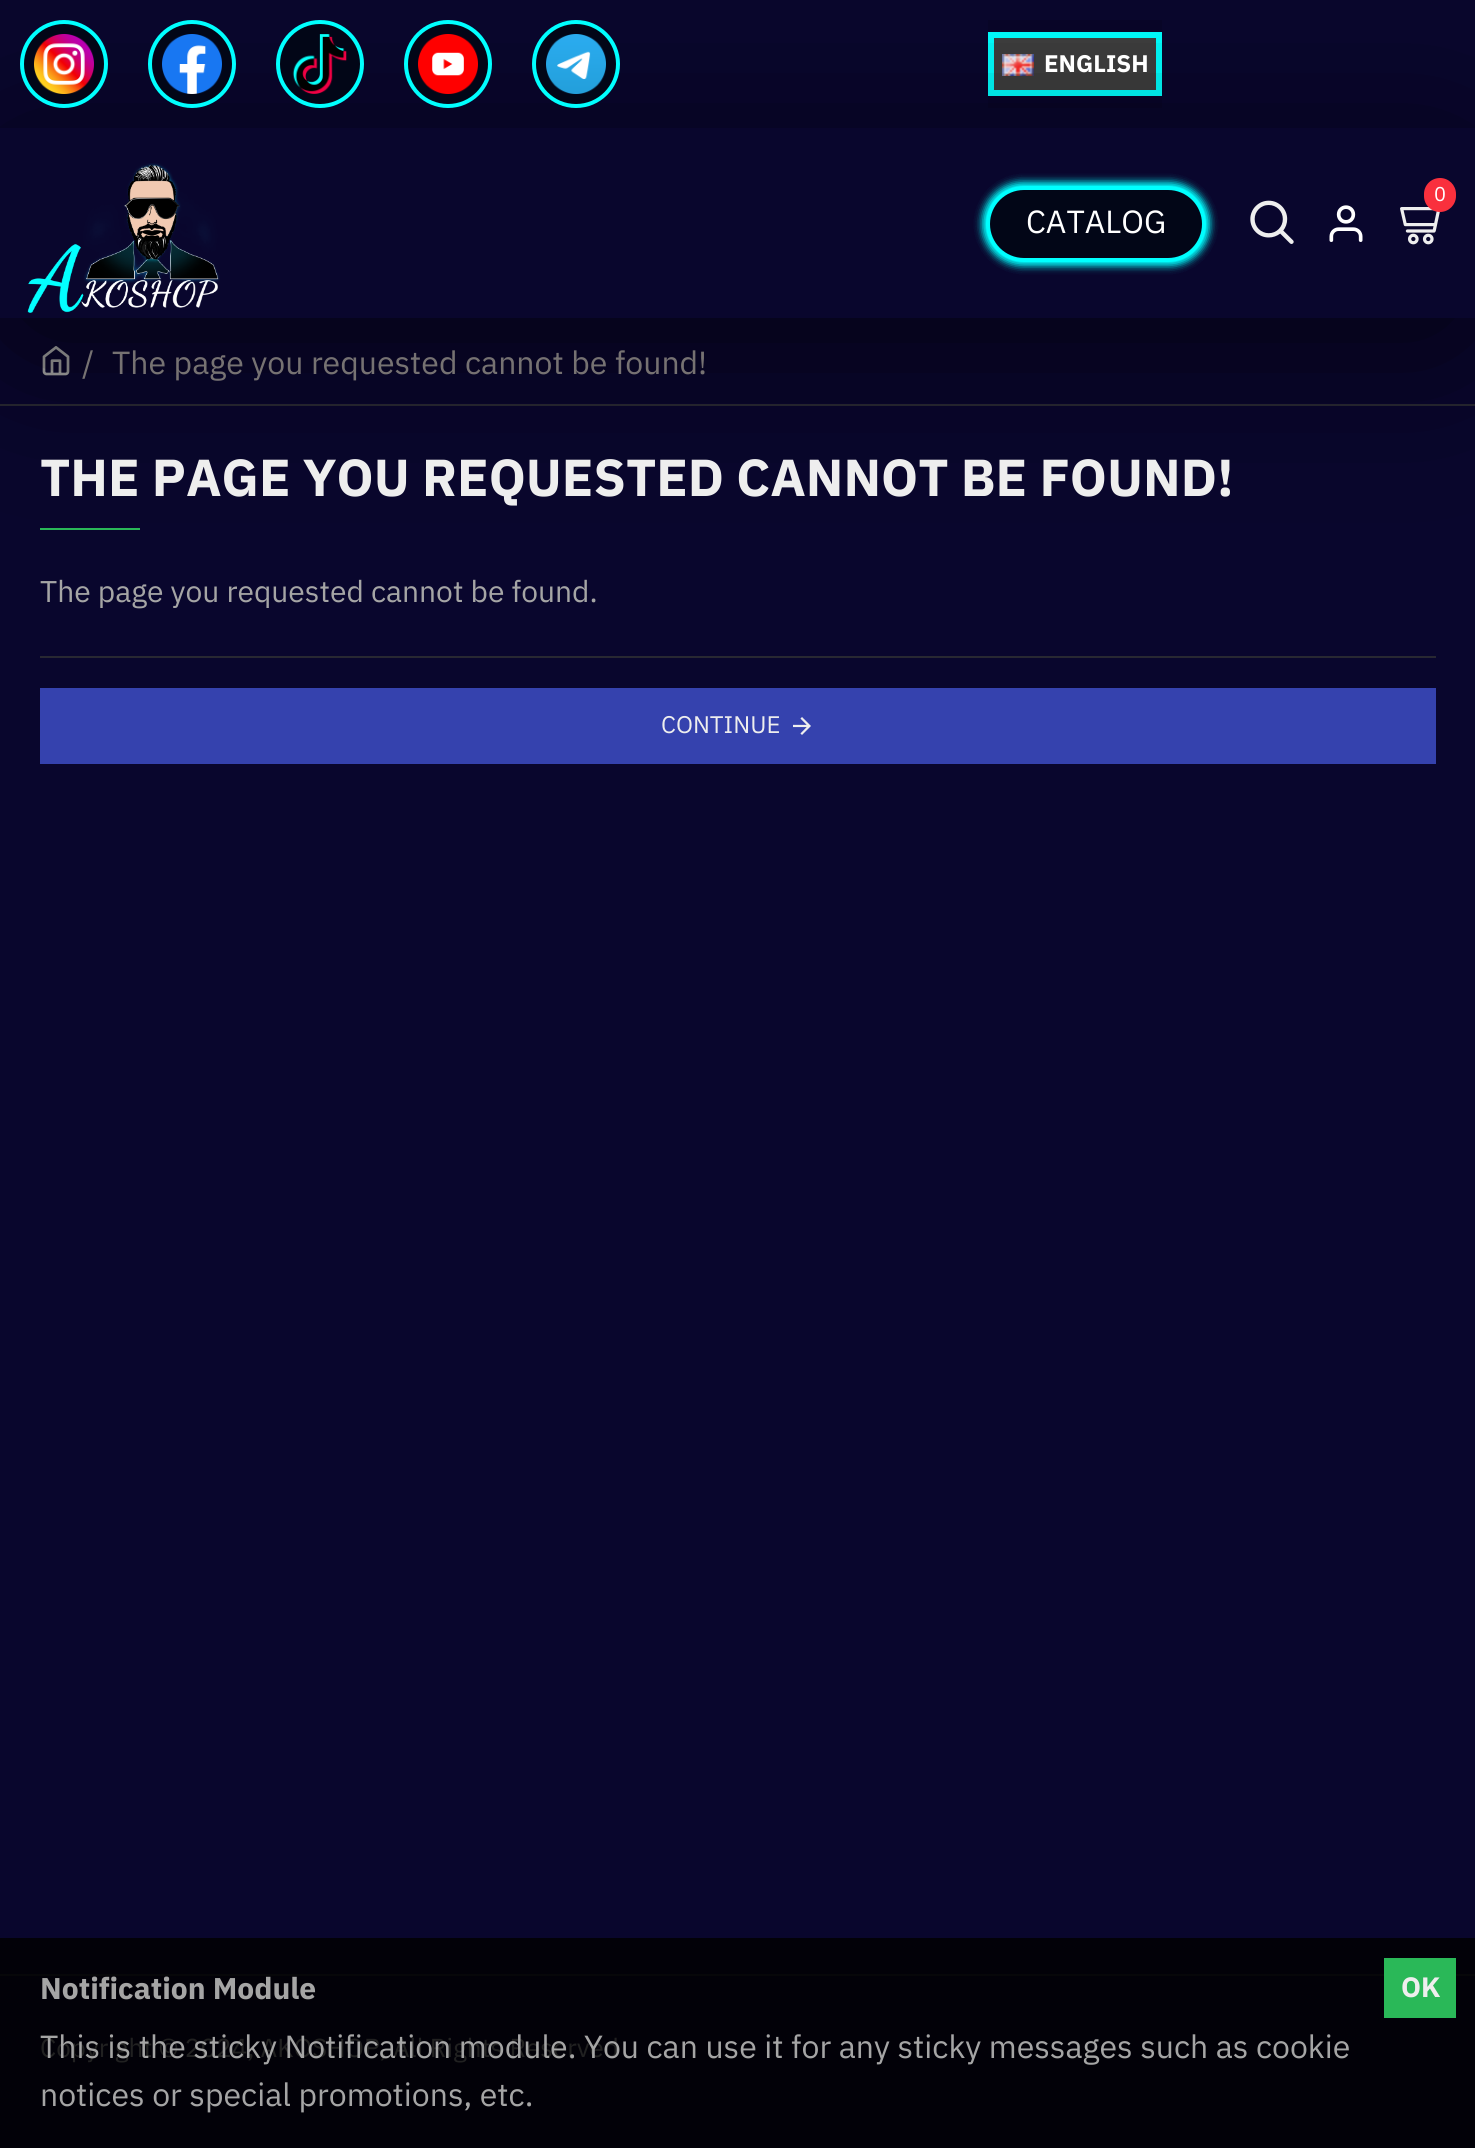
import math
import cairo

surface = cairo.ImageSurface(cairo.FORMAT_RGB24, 1475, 2148)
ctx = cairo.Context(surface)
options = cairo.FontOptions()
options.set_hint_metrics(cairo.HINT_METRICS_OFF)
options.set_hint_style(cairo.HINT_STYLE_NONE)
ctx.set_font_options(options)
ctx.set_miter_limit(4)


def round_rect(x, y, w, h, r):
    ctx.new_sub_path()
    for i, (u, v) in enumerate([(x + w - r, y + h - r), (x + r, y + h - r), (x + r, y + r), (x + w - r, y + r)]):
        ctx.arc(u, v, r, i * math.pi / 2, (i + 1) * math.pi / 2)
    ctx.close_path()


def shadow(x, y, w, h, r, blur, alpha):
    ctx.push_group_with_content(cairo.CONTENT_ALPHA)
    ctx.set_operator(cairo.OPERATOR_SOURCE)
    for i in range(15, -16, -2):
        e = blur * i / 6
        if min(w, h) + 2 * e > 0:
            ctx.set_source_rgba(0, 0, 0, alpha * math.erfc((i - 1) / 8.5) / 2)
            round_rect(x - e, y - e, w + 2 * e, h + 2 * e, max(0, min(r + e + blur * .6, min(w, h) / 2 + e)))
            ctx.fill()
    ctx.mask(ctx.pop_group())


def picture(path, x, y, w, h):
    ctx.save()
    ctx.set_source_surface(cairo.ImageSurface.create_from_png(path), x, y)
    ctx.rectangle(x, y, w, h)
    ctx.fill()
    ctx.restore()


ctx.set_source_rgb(0.039, 0.024, 0.176)
ctx.paint()
ctx.set_source_rgb(0.008, 0.004, 0.035)
ctx.rectangle(0, 1938, 1475, 210)
ctx.fill()
ctx.set_source_rgb(0.035, 0.02, 0.157)
ctx.rectangle(988, 20, 174, 88)
ctx.fill()
ctx.set_source_rgb(0.243, 0.243, 0.243)
ctx.rectangle(991, 35, 168, 58)
ctx.fill_preserve()
ctx.set_source_rgb(0, 1, 1)
ctx.set_line_width(6)
ctx.stroke()
picture("img6.png", 1002, 54, 32, 22)
picture("img11.png", 42, 346, 28, 30)
ctx.set_source_rgb(0.157, 0.157, 0.196)
ctx.rectangle(0, 404, 1475, 2)
ctx.fill()
ctx.set_source_rgb(0.165, 0.722, 0.345)
ctx.rectangle(40, 528, 100, 2)
ctx.fill()
ctx.save()
ctx.set_fill_rule(cairo.FILL_RULE_EVEN_ODD)
ctx.new_path()
ctx.move_to(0, 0)
ctx.line_to(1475, 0)
ctx.line_to(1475, 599)
ctx.line_to(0, 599)
ctx.close_path()
ctx.move_to(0, 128)
ctx.line_to(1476, 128)
ctx.line_to(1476, 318)
ctx.line_to(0, 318)
ctx.close_path()
ctx.clip()
ctx.set_source_rgb(0, 0, 0)
shadow(20, 178, 1436, 150, 0, 90, 0.7)
ctx.restore()
ctx.set_source_rgb(0.008, 0.024, 0.09)
ctx.arc(64, 64, 42, 0, 2 * math.pi)
ctx.fill_preserve()
ctx.set_source_rgb(0, 1, 1)
ctx.set_line_width(4)
ctx.stroke()
picture("img1.png", 34, 34, 60, 60)
ctx.set_source_rgb(0.008, 0.024, 0.09)
ctx.arc(192, 64, 42, 0, 2 * math.pi)
ctx.fill_preserve()
ctx.set_source_rgb(0, 1, 1)
ctx.stroke()
picture("img2.png", 162, 34, 60, 60)
ctx.set_source_rgb(0.008, 0.024, 0.09)
ctx.arc(320, 64, 42, 0, 2 * math.pi)
ctx.fill_preserve()
ctx.set_source_rgb(0, 1, 1)
ctx.stroke()
picture("img3.png", 292, 34, 55, 60)
ctx.set_source_rgb(0.008, 0.024, 0.09)
ctx.arc(448, 64, 42, 0, 2 * math.pi)
ctx.fill_preserve()
ctx.set_source_rgb(0, 1, 1)
ctx.stroke()
picture("img4.png", 418, 34, 60, 60)
ctx.set_source_rgb(0.008, 0.024, 0.09)
ctx.arc(576, 64, 42, 0, 2 * math.pi)
ctx.fill_preserve()
ctx.set_source_rgb(0, 1, 1)
ctx.stroke()
picture("img5.png", 546, 34, 60, 60)
ctx.select_font_face("IBM Plex Sans", cairo.FONT_SLANT_NORMAL, cairo.FONT_WEIGHT_BOLD)
ctx.set_font_size(24)
ctx.set_source_rgb(1, 1, 1)
ctx.move_to(1044, 72)
ctx.show_text("ENGLISH")
picture("img7.png", 27, 163, 193, 150)
picture("img8.png", 1400, 207, 40, 38)
ctx.set_source_rgb(0.973, 0.188, 0.239)
round_rect(1424, 178, 32, 34, 16)
ctx.fill()
ctx.select_font_face("IBM Plex Sans")
ctx.set_font_size(20)
ctx.set_source_rgb(1, 1, 1)
ctx.move_to(1434, 201)
ctx.show_text("0")
ctx.set_source_rgb(0, 1, 1)
shadow(986, 186, 220, 76, 38, 5, 1)
shadow(986, 186, 220, 76, 38, 5, 1)
shadow(986, 186, 220, 76, 38, 5, 1)
ctx.set_source_rgb(0.008, 0.024, 0.09)
round_rect(988, 188, 216, 72, 36)
ctx.fill_preserve()
ctx.set_source_rgb(0, 1, 1)
ctx.stroke()
ctx.set_font_size(32)
ctx.set_source_rgb(1, 1, 1)
ctx.move_to(1026, 233)
ctx.show_text("CATALOG")
picture("img9.png", 1250, 200, 44, 44)
picture("img10.png", 1329, 205, 34, 37)
ctx.set_source_rgb(0.463, 0.447, 0.447)
ctx.move_to(82, 374)
ctx.show_text("/")
ctx.move_to(112, 374)
ctx.show_text("The page you requested cannot be found!")
ctx.select_font_face("IBM Plex Sans", cairo.FONT_SLANT_NORMAL, cairo.FONT_WEIGHT_BOLD)
ctx.set_font_size(52)
ctx.set_source_rgb(0.933, 0.933, 0.933)
ctx.move_to(40, 496)
ctx.show_text("THE PAGE YOU REQUESTED CANNOT BE FOUND!")
ctx.select_font_face("IBM Plex Sans")
ctx.set_font_size(30)
ctx.set_source_rgb(0.647, 0.647, 0.647)
ctx.move_to(40, 602)
ctx.show_text("The page you requested cannot be found.")
ctx.set_source_rgb(0.157, 0.157, 0.196)
ctx.rectangle(40, 656, 1396, 2)
ctx.fill()
ctx.set_source_rgb(0.208, 0.259, 0.682)
ctx.rectangle(40, 688, 1396, 76)
ctx.fill()
ctx.set_font_size(24)
ctx.set_source_rgb(0.933, 0.933, 0.933)
ctx.move_to(661, 733)
ctx.show_text("CONTINUE")
picture("img12.png", 793, 717, 18, 18)
ctx.set_source_rgb(0.031, 0.031, 0.039)
ctx.rectangle(0, 1974, 1475, 2)
ctx.fill()
ctx.set_font_size(26)
ctx.set_source_rgb(0.129, 0.129, 0.129)
ctx.move_to(40, 2057)
ctx.show_text("Copyright © 2024, AKOSHOP, All Rights Reserved")
ctx.select_font_face("IBM Plex Sans", cairo.FONT_SLANT_NORMAL, cairo.FONT_WEIGHT_BOLD)
ctx.set_font_size(30)
ctx.set_source_rgb(0.647, 0.647, 0.647)
ctx.move_to(40, 1999)
ctx.show_text("Notification Module")
ctx.select_font_face("IBM Plex Sans")
ctx.set_font_size(32)
ctx.move_to(40, 2058)
ctx.show_text("This is the sticky Notification module. You can use it for any sticky messages such as cookie")
ctx.move_to(40, 2106)
ctx.show_text("notices or special promotions, etc.")
ctx.set_source_rgb(0.165, 0.722, 0.345)
ctx.rectangle(1384, 1958, 72, 60)
ctx.fill()
ctx.select_font_face("IBM Plex Sans", cairo.FONT_SLANT_NORMAL, cairo.FONT_WEIGHT_BOLD)
ctx.set_font_size(28)
ctx.set_source_rgb(0.933, 0.933, 0.933)
ctx.move_to(1401, 1997)
ctx.show_text("OK")
surface.write_to_png("page.png")
